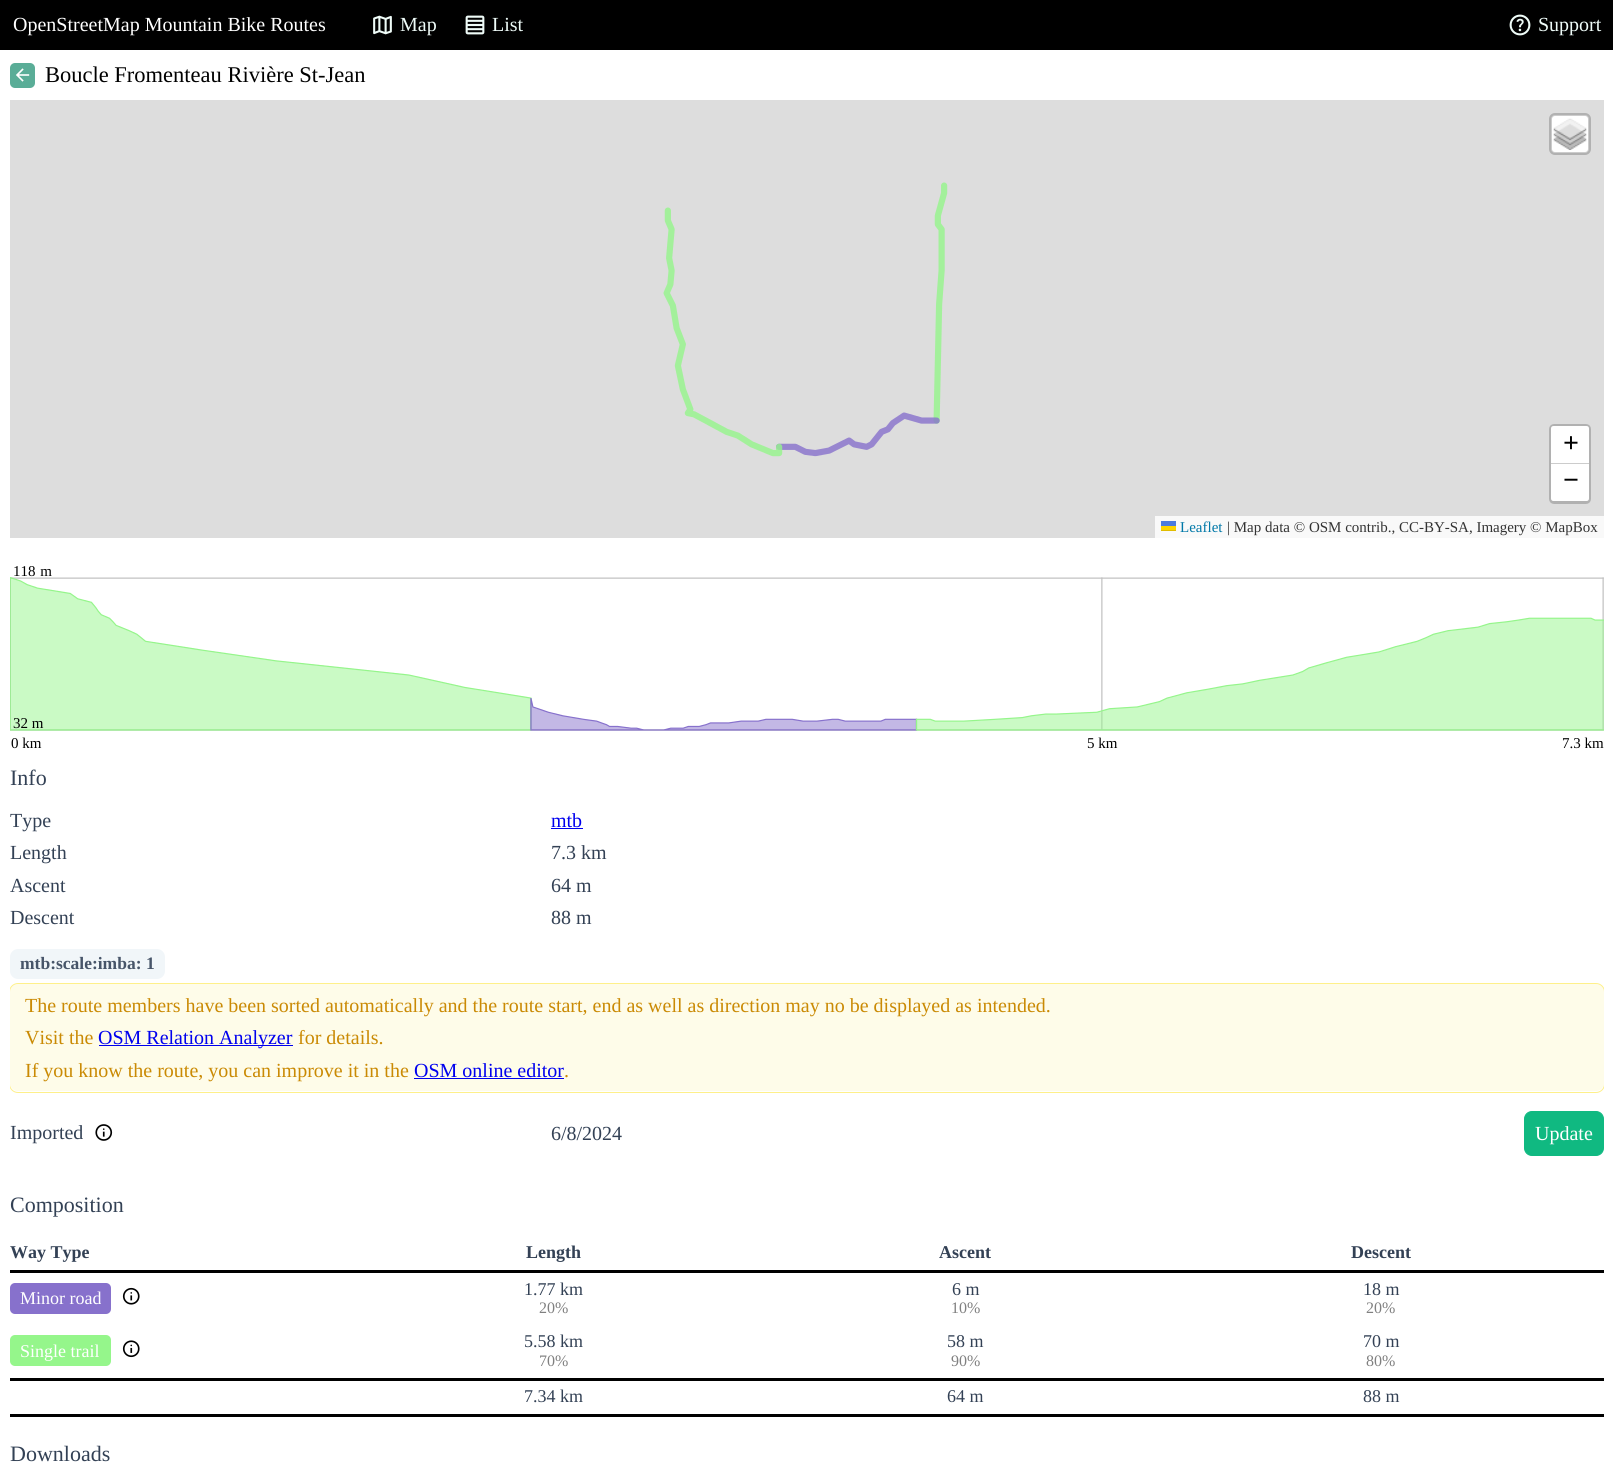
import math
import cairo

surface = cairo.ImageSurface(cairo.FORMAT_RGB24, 1613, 1466)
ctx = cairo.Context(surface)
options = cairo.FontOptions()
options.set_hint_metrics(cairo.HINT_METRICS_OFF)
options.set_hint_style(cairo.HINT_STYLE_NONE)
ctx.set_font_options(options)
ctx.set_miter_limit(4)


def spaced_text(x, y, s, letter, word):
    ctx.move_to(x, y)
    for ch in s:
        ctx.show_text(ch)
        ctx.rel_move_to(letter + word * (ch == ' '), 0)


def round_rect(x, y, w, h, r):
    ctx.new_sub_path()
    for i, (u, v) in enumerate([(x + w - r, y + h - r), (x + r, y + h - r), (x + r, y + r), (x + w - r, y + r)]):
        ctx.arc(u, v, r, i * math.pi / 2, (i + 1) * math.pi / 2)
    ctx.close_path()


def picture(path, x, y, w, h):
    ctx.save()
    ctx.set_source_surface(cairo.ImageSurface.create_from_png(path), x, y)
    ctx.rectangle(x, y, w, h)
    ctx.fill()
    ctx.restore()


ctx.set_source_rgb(1, 1, 1)
ctx.paint()
ctx.set_source_rgb(0, 0, 0)
ctx.rectangle(0, 0, 1613, 50)
ctx.fill()
ctx.select_font_face("Liberation Serif")
ctx.set_font_size(20)
ctx.set_source_rgb(1, 1, 1)
ctx.move_to(13, 31)
ctx.show_text("OpenStreetMap Mountain Bike Routes")
picture("img1.png", 373, 15, 19, 20)
ctx.set_source_rgb(0.937, 0.988, 0.973)
ctx.move_to(400, 31)
ctx.show_text("Map")
picture("img2.png", 465, 15, 20, 20)
ctx.move_to(492, 31)
ctx.show_text("List")
picture("img3.png", 1509, 14, 22, 22)
ctx.move_to(1538, 31)
ctx.show_text("Support")
ctx.set_source_rgb(0.353, 0.678, 0.592)
round_rect(10, 63, 25, 25, 5)
ctx.fill()
picture("img4.png", 16, 68, 14, 14)
ctx.set_font_size(22.5)
ctx.set_source_rgb(0, 0, 0)
ctx.move_to(45, 82)
ctx.show_text("Boucle Fromenteau Rivière St-Jean")
ctx.set_source_rgb(0.867, 0.867, 0.867)
ctx.rectangle(10, 100, 1594, 438)
ctx.fill()
picture("img5.png", 663, 182, 285, 275)
ctx.set_source_rgb(1, 1, 1)
round_rect(1551, 115, 38, 38, 4)
ctx.fill()
round_rect(1550.5, 114.5, 39, 39, 4.5)
ctx.set_source_rgba(0, 0, 0, 0.2)
ctx.set_line_width(3)
ctx.stroke()
picture("img6.png", 1553, 118, 34, 32)
round_rect(1550.5, 425.5, 39, 77, 3.5)
ctx.set_source_rgb(0.694, 0.694, 0.694)
ctx.stroke()
ctx.set_source_rgb(1, 1, 1)
ctx.new_path()
ctx.move_to(1553.5, 426)
ctx.line_to(1586.5, 426)
ctx.curve_to(1588, 426, 1589, 427, 1589, 428.5)
ctx.line_to(1589, 464)
ctx.line_to(1551, 464)
ctx.line_to(1551, 428.5)
ctx.curve_to(1551, 427, 1552, 426, 1553.5, 426)
ctx.close_path()
ctx.fill()
ctx.set_source_rgb(0.8, 0.8, 0.8)
ctx.rectangle(1551, 463, 38, 1)
ctx.fill()
ctx.select_font_face("Liberation Serif", cairo.FONT_SLANT_NORMAL, cairo.FONT_WEIGHT_BOLD)
ctx.set_font_size(28)
ctx.set_source_rgb(0, 0, 0)
ctx.move_to(1563, 452)
ctx.show_text("+")
ctx.set_source_rgb(1, 1, 1)
ctx.new_path()
ctx.move_to(1551, 464)
ctx.line_to(1589, 464)
ctx.line_to(1589, 498.5)
ctx.curve_to(1589, 500, 1588, 501, 1586.5, 501)
ctx.line_to(1553.5, 501)
ctx.curve_to(1552, 501, 1551, 500, 1551, 498.5)
ctx.close_path()
ctx.fill()
ctx.set_source_rgb(0, 0, 0)
ctx.move_to(1563, 489)
ctx.show_text("−")
ctx.set_source_rgb(0.973, 0.973, 0.973)
ctx.rectangle(1155, 516, 449, 22)
ctx.fill()
ctx.select_font_face("Liberation Serif")
ctx.set_font_size(15)
ctx.set_source_rgb(0, 0.471, 0.659)
ctx.move_to(1180, 532)
ctx.show_text("Leaflet")
ctx.set_source_rgb(0.298, 0.482, 0.882)
ctx.rectangle(1161, 521, 15, 5)
ctx.fill()
ctx.set_source_rgb(1, 0.835, 0)
ctx.rectangle(1161, 526, 15, 4)
ctx.fill()
ctx.set_source_rgb(0.878, 0.737, 0)
ctx.rectangle(1161, 530, 15, 1)
ctx.fill()
ctx.set_source_rgb(0.2, 0.2, 0.2)
ctx.move_to(1227, 532)
ctx.show_text("| Map data © OSM contrib., CC-BY-SA, Imagery © MapBox")
ctx.set_source_rgb(0, 0, 0)
spaced_text(13, 576, "118 m", 0, 1)
picture("img7.png", 10, 577, 1594, 154)
ctx.move_to(13, 728)
ctx.show_text("32 m")
ctx.move_to(11, 748)
ctx.show_text("0 km")
ctx.move_to(1087, 748)
ctx.show_text("5 km")
ctx.move_to(1562, 748)
ctx.show_text("7.3 km")
ctx.set_font_size(22)
ctx.set_source_rgb(0.2, 0.255, 0.333)
ctx.move_to(10, 785)
ctx.show_text("Info")
ctx.set_font_size(20)
ctx.move_to(10, 827)
ctx.show_text("Type")
ctx.set_source_rgb(0, 0, 0.933)
ctx.move_to(551, 827)
ctx.show_text("mtb")
ctx.rectangle(551, 828, 32, 1)
ctx.fill()
ctx.set_source_rgb(0.2, 0.255, 0.333)
ctx.move_to(10, 859)
ctx.show_text("Length")
ctx.move_to(551, 859)
ctx.show_text("7.3 km")
ctx.move_to(10, 892)
ctx.show_text("Ascent")
ctx.move_to(551, 892)
ctx.show_text("64 m")
ctx.move_to(10, 924)
ctx.show_text("Descent")
ctx.move_to(551, 924)
ctx.show_text("88 m")
ctx.set_source_rgb(0.945, 0.961, 0.976)
round_rect(10, 949, 155, 30, 8)
ctx.fill()
ctx.select_font_face("Liberation Serif", cairo.FONT_SLANT_NORMAL, cairo.FONT_WEIGHT_BOLD)
ctx.set_font_size(17.5)
ctx.set_source_rgb(0.278, 0.333, 0.412)
ctx.move_to(20, 969)
ctx.show_text("mtb:scale:imba: 1")
ctx.set_source_rgb(0.996, 0.988, 0.914)
round_rect(10, 984, 1594, 107, 8)
ctx.fill()
ctx.set_source_rgb(0, 0, 0.933)
ctx.rectangle(99, 1045, 194, 1)
ctx.fill()
ctx.rectangle(414, 1078, 150, 1)
ctx.fill()
ctx.save()
ctx.rectangle(10, 755, 1594, 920)
ctx.clip()
round_rect(9.5, 983.5, 1595, 109, 8.5)
ctx.set_source_rgb(0.996, 0.941, 0.541)
ctx.set_line_width(1)
ctx.stroke()
ctx.restore()
ctx.select_font_face("Liberation Serif")
ctx.set_font_size(20)
ctx.set_source_rgb(0.792, 0.541, 0.016)
ctx.move_to(25, 1012)
ctx.show_text("The route members have been sorted automatically and the route start, end as well as direction may no be displayed as intended.")
ctx.move_to(25, 1044)
ctx.show_text("Visit the")
ctx.set_source_rgb(0, 0, 0.933)
ctx.move_to(98, 1044)
ctx.show_text("OSM Relation Analyzer")
ctx.set_source_rgb(0.792, 0.541, 0.016)
ctx.move_to(298, 1044)
ctx.show_text("for details.")
ctx.move_to(25, 1077)
ctx.show_text("If you know the route, you can improve it in the")
ctx.set_source_rgb(0, 0, 0.933)
ctx.move_to(414, 1077)
ctx.show_text("OSM online editor")
ctx.set_source_rgb(0.792, 0.541, 0.016)
ctx.move_to(564, 1077)
ctx.show_text(".")
ctx.set_source_rgb(0.2, 0.255, 0.333)
ctx.move_to(10, 1139)
ctx.show_text("Imported")
picture("img8.png", 95, 1124, 18, 17)
ctx.move_to(551, 1140)
ctx.show_text("6/8/2024")
ctx.set_source_rgb(0.063, 0.725, 0.506)
round_rect(1524.5, 1111.5, 79, 44, 7.5)
ctx.fill_preserve()
ctx.set_line_width(1)
ctx.stroke()
ctx.set_source_rgb(1, 1, 1)
ctx.move_to(1535, 1140)
ctx.show_text("Update")
ctx.set_font_size(22)
ctx.set_source_rgb(0.2, 0.255, 0.333)
ctx.move_to(10, 1212)
ctx.show_text("Composition")
ctx.select_font_face("Liberation Serif", cairo.FONT_SLANT_NORMAL, cairo.FONT_WEIGHT_BOLD)
ctx.set_font_size(18)
ctx.move_to(10, 1258)
ctx.show_text("Way Type")
ctx.move_to(526, 1258)
ctx.show_text("Length")
ctx.move_to(939, 1258)
ctx.show_text("Ascent")
ctx.set_source_rgb(0, 0, 0)
ctx.rectangle(10, 1270, 1594, 3)
ctx.fill()
ctx.set_source_rgb(0.2, 0.255, 0.333)
ctx.move_to(1351, 1258)
ctx.show_text("Descent")
ctx.set_source_rgb(0.529, 0.443, 0.8)
round_rect(10, 1283, 101, 31, 5)
ctx.fill()
ctx.select_font_face("Liberation Serif")
ctx.set_source_rgb(1, 1, 1)
ctx.move_to(20, 1304)
ctx.show_text("Minor road")
picture("img9.png", 122, 1287, 18, 18)
ctx.set_source_rgb(0.2, 0.255, 0.333)
ctx.move_to(524, 1295)
ctx.show_text("1.77 km")
ctx.set_font_size(16)
ctx.set_source_rgb(0.502, 0.502, 0.502)
ctx.move_to(539, 1313)
ctx.show_text("20%")
ctx.set_font_size(18)
ctx.set_source_rgb(0.2, 0.255, 0.333)
ctx.move_to(952, 1295)
ctx.show_text("6 m")
ctx.set_font_size(16)
ctx.set_source_rgb(0.502, 0.502, 0.502)
ctx.move_to(951, 1313)
ctx.show_text("10%")
ctx.set_font_size(18)
ctx.set_source_rgb(0.2, 0.255, 0.333)
ctx.move_to(1363, 1295)
ctx.show_text("18 m")
ctx.set_font_size(16)
ctx.set_source_rgb(0.502, 0.502, 0.502)
ctx.move_to(1366, 1313)
ctx.show_text("20%")
ctx.set_source_rgb(0.584, 0.961, 0.545)
round_rect(10, 1335, 101, 31, 5)
ctx.fill()
ctx.set_font_size(18)
ctx.set_source_rgb(1, 1, 1)
ctx.move_to(20, 1357)
ctx.show_text("Single trail")
picture("img10.png", 122, 1340, 18, 18)
ctx.set_source_rgb(0.2, 0.255, 0.333)
ctx.move_to(524, 1347)
ctx.show_text("5.58 km")
ctx.set_font_size(16)
ctx.set_source_rgb(0.502, 0.502, 0.502)
ctx.move_to(539, 1366)
ctx.show_text("70%")
ctx.set_font_size(18)
ctx.set_source_rgb(0.2, 0.255, 0.333)
ctx.move_to(947, 1347)
ctx.show_text("58 m")
ctx.set_font_size(16)
ctx.set_source_rgb(0.502, 0.502, 0.502)
ctx.move_to(951, 1366)
ctx.show_text("90%")
ctx.set_font_size(18)
ctx.set_source_rgb(0.2, 0.255, 0.333)
ctx.move_to(1363, 1347)
ctx.show_text("70 m")
ctx.set_font_size(16)
ctx.set_source_rgb(0.502, 0.502, 0.502)
ctx.move_to(1366, 1366)
ctx.show_text("80%")
ctx.set_font_size(18)
ctx.set_source_rgb(0.2, 0.255, 0.333)
ctx.move_to(524, 1402)
ctx.show_text("7.34 km")
ctx.move_to(947, 1402)
ctx.show_text("64 m")
ctx.set_source_rgb(0, 0, 0)
ctx.rectangle(10, 1378, 1594, 3)
ctx.fill()
ctx.rectangle(10, 1414, 1594, 3)
ctx.fill()
ctx.set_source_rgb(0.2, 0.255, 0.333)
ctx.move_to(1363, 1402)
ctx.show_text("88 m")
ctx.set_font_size(22)
ctx.move_to(10, 1461)
ctx.show_text("Downloads")
surface.write_to_png("page.png")
